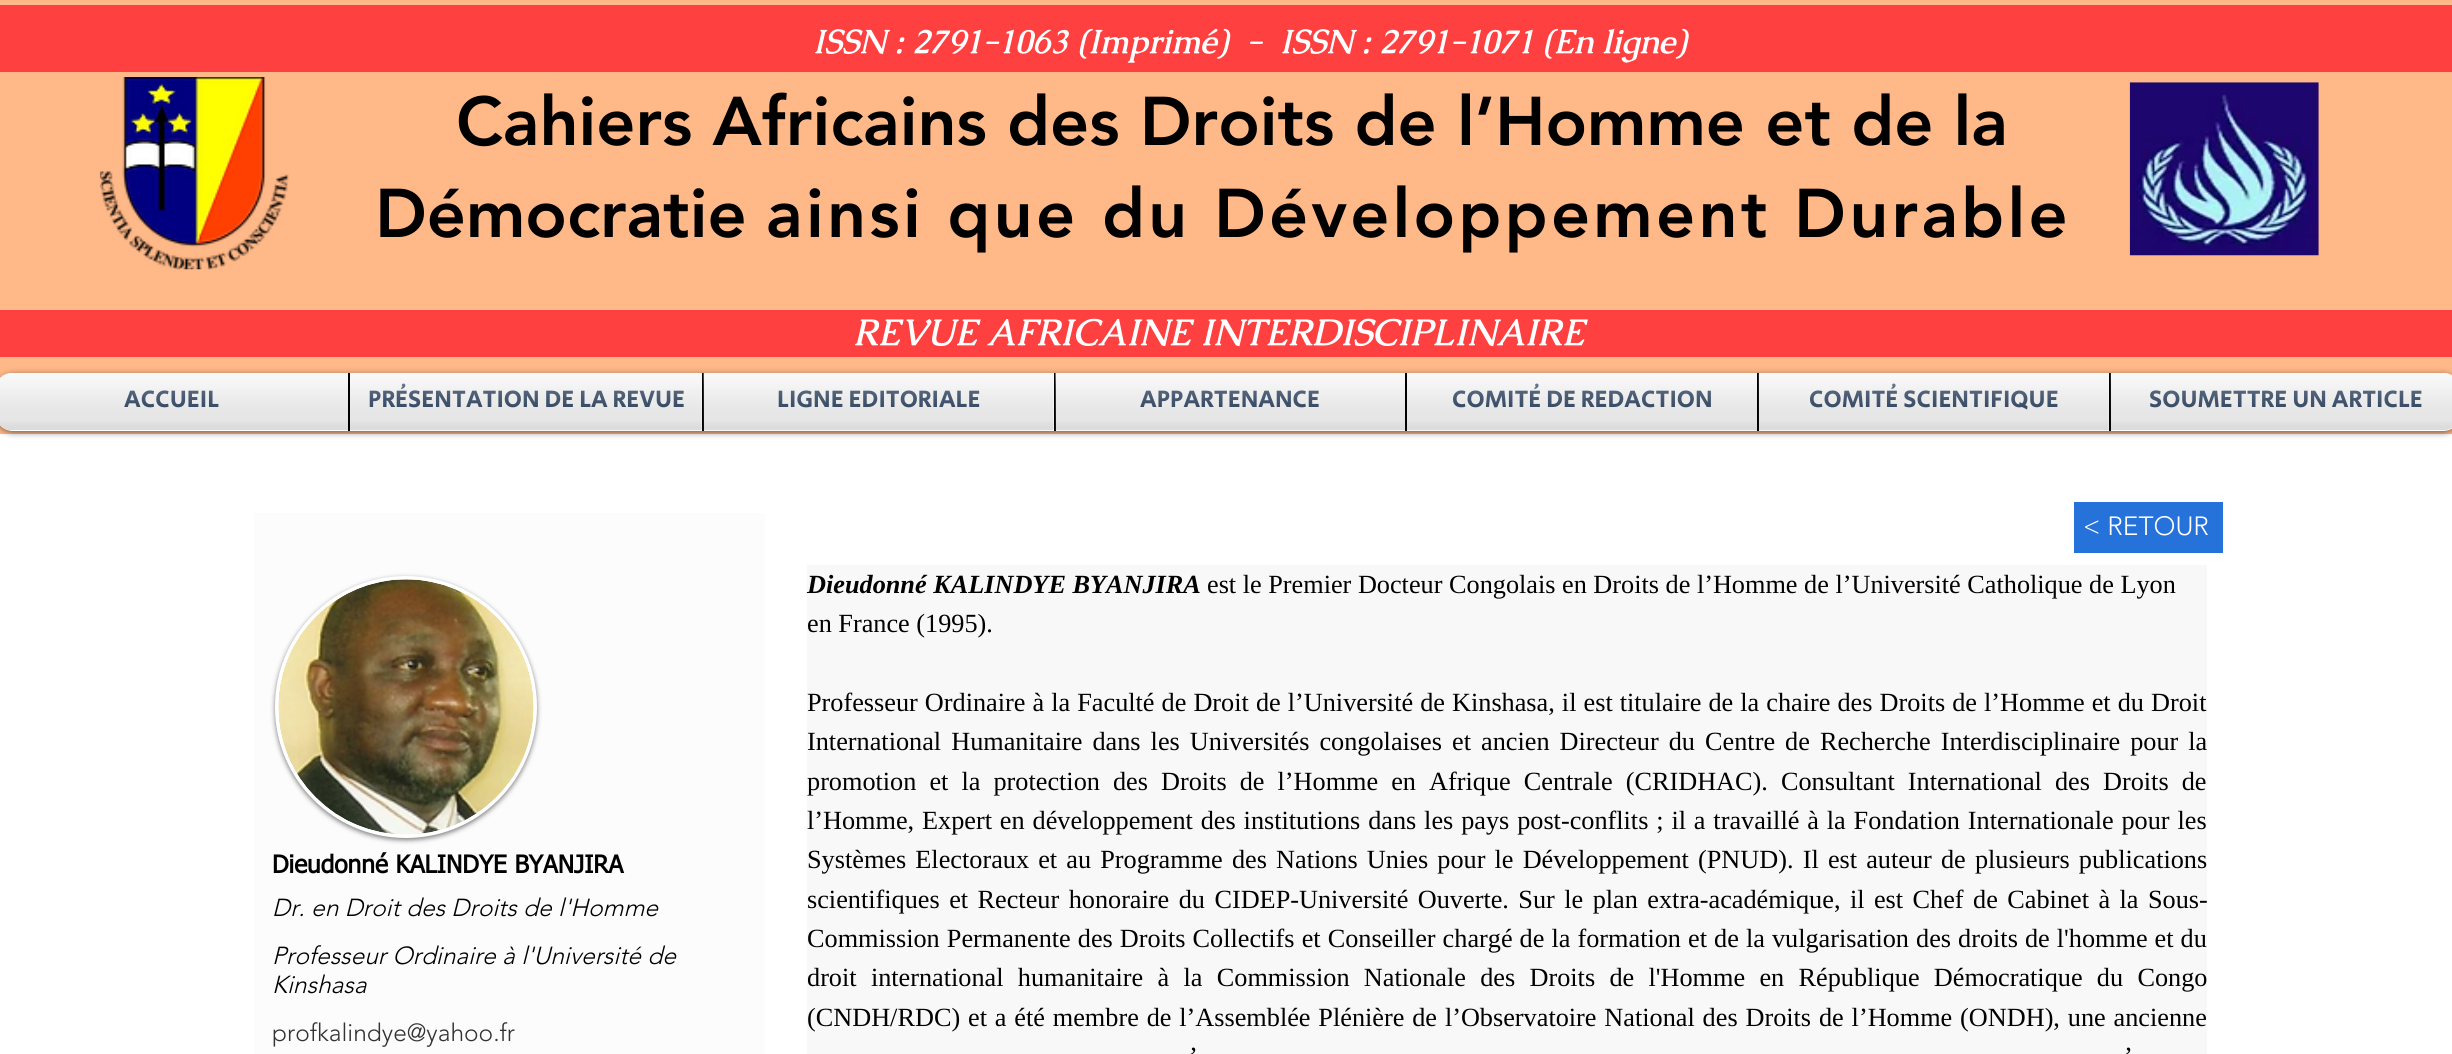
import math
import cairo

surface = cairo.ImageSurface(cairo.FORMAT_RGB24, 2452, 1054)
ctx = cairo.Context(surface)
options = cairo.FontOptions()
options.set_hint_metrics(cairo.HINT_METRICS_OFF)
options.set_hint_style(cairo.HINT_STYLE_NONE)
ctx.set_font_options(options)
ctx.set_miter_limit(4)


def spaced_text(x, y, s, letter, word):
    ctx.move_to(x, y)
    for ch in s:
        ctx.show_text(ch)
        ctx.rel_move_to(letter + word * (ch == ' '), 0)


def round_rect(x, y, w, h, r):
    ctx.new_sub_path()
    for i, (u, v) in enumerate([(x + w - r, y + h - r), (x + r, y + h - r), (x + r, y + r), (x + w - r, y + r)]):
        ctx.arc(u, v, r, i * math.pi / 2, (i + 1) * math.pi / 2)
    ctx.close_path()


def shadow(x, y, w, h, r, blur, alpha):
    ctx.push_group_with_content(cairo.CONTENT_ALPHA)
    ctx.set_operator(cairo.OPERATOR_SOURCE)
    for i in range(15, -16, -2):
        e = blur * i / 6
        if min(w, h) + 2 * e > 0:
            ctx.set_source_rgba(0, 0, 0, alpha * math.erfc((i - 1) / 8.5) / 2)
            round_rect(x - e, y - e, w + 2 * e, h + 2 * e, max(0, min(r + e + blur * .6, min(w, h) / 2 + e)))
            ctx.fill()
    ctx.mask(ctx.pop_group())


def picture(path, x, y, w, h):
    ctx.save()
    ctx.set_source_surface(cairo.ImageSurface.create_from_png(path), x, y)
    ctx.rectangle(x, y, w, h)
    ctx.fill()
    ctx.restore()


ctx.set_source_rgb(1, 1, 1)
ctx.paint()
ctx.set_source_rgb(1, 0.722, 0.529)
ctx.rectangle(0, 0, 2452, 434)
ctx.fill()
ctx.set_source_rgb(1, 0.251, 0.251)
ctx.rectangle(0, 5, 2452, 67)
ctx.fill()
ctx.select_font_face("Caudex", cairo.FONT_SLANT_ITALIC, cairo.FONT_WEIGHT_BOLD)
ctx.set_font_size(33.25)
ctx.set_source_rgb(1, 1, 1)
ctx.move_to(813, 53)
ctx.show_text("ISSN : 2791-1063 (Imprimé)  -  ISSN : 2791-1071 (En ligne)")
picture("img1.png", 99, 77, 190, 193)
ctx.select_font_face("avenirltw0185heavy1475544 Black")
ctx.set_font_size(68.25)
ctx.set_source_rgb(0, 0, 0)
ctx.move_to(456, 145)
ctx.show_text("Cahiers Africains des Droits de l’Homme et de la")
ctx.move_to(375, 237)
ctx.show_text("Démocratie")
spaced_text(766, 237, "ainsi que du Développement Durable", 3.25, 0)
picture("img2.png", 2129, 82, 190, 174)
ctx.set_source_rgb(1, 0.251, 0.251)
ctx.rectangle(0, 310, 2452, 47)
ctx.fill()
ctx.select_font_face("Caudex", cairo.FONT_SLANT_ITALIC, cairo.FONT_WEIGHT_BOLD)
ctx.set_font_size(36.75)
ctx.set_source_rgb(1, 1, 1)
ctx.move_to(853, 345)
ctx.show_text("REVUE AFRICAINE INTERDISCIPLINAIRE")
ctx.set_source_rgb(0, 0, 0)
shadow(-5, 375, 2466, 57, 18, 3.5, 0.6)
picture("img3.png", 0, 372, 2452, 7)
picture("img4.png", 0, 373, 2452, 57)
ctx.set_source_rgb(1, 1, 1)
ctx.new_path()
ctx.move_to(13, 373)
ctx.line_to(348, 373)
ctx.line_to(348, 431)
ctx.line_to(13, 431)
ctx.curve_to(3, 431, -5, 423, -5, 413)
ctx.line_to(-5, 391)
ctx.curve_to(-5, 381, 3, 373, 13, 373)
ctx.close_path()
ctx.fill()
ctx.select_font_face("Secular One")
ctx.set_font_size(24.5)
ctx.set_source_rgb(0.047, 0.149, 0.286)
ctx.move_to(124, 407)
ctx.show_text("ACCUEIL")
picture("img5.png", 0, 373, 219, 35)
picture("img6.png", 0, 373, 348, 57)
ctx.set_source_rgb(1, 1, 1)
ctx.rectangle(350, 373, 352, 58)
ctx.fill()
ctx.set_source_rgb(0, 0, 0)
ctx.rectangle(348, 373, 2, 58)
ctx.fill()
ctx.set_source_rgb(0.047, 0.149, 0.286)
ctx.move_to(368, 407)
ctx.show_text("PRÉSENTATION DE LA REVUE")
picture("img7.png", 350, 372, 351, 36)
picture("img8.png", 350, 373, 352, 58)
ctx.set_source_rgb(1, 1, 1)
ctx.rectangle(704, 373, 350, 58)
ctx.fill()
ctx.set_source_rgb(0, 0, 0)
ctx.rectangle(702, 373, 2, 58)
ctx.fill()
ctx.set_source_rgb(0.047, 0.149, 0.286)
ctx.move_to(777, 407)
ctx.show_text("LIGNE EDITORIALE")
picture("img9.png", 703, 372, 350, 58)
picture("img10.png", 704, 373, 350, 58)
ctx.set_source_rgb(1, 1, 1)
ctx.rectangle(1056, 373, 349, 58)
ctx.fill()
ctx.set_source_rgb(0, 0, 0)
ctx.rectangle(1054, 373, 2, 58)
ctx.fill()
ctx.set_source_rgb(0.047, 0.149, 0.286)
ctx.move_to(1140, 407)
ctx.show_text("APPARTENANCE")
picture("img11.png", 1055, 372, 350, 58)
picture("img12.png", 1056, 373, 349, 58)
ctx.set_source_rgb(1, 1, 1)
ctx.rectangle(1407, 373, 350, 58)
ctx.fill()
ctx.set_source_rgb(0, 0, 0)
ctx.rectangle(1405, 373, 2, 58)
ctx.fill()
ctx.set_source_rgb(0.047, 0.149, 0.286)
ctx.move_to(1452, 407)
ctx.show_text("COMITÉ DE REDACTION")
picture("img13.png", 1407, 372, 350, 36)
picture("img14.png", 1407, 373, 350, 58)
ctx.set_source_rgb(1, 1, 1)
ctx.rectangle(1759, 373, 350, 58)
ctx.fill()
ctx.set_source_rgb(0, 0, 0)
ctx.rectangle(1757, 373, 2, 58)
ctx.fill()
ctx.set_source_rgb(0.047, 0.149, 0.286)
ctx.move_to(1809, 407)
ctx.show_text("COMITÉ SCIENTIFIQUE")
picture("img15.png", 1758, 372, 350, 58)
picture("img16.png", 1759, 373, 350, 58)
ctx.set_source_rgb(1, 1, 1)
ctx.new_path()
ctx.move_to(2109, 373)
ctx.line_to(2443, 373)
ctx.curve_to(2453, 373, 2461, 381, 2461, 391)
ctx.line_to(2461, 413)
ctx.curve_to(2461, 423, 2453, 431, 2443, 431)
ctx.line_to(2109, 431)
ctx.close_path()
ctx.fill()
ctx.set_source_rgb(0, 0, 0)
ctx.rectangle(2109, 373, 2, 58)
ctx.fill()
ctx.set_source_rgb(0.047, 0.149, 0.286)
ctx.move_to(2149, 407)
ctx.show_text("SOUMETTRE UN ARTICLE")
picture("img17.png", 2110, 373, 341, 57)
picture("img18.png", 2111, 373, 341, 57)
ctx.set_source_rgb(0.145, 0.451, 0.855)
ctx.rectangle(2074, 502, 149, 51)
ctx.fill()
ctx.select_font_face("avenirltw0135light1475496 Light")
ctx.set_font_size(26.25)
ctx.set_source_rgb(1, 1, 1)
ctx.move_to(2083, 535)
ctx.show_text("< RETOUR")
ctx.set_source_rgb(0.988, 0.988, 0.988)
ctx.rectangle(254, 513, 511, 541)
ctx.fill()
ctx.set_source_rgb(0, 0, 0)
shadow(275, 578, 262, 262, 131, 2.5, 0.5)
ctx.arc(406, 707, 129, 0, 2 * math.pi)
ctx.set_source_rgb(1, 1, 1)
ctx.set_line_width(4)
ctx.stroke()
picture("img19.png", 278, 579, 256, 256)
ctx.select_font_face("tahoma", cairo.FONT_SLANT_NORMAL, cairo.FONT_WEIGHT_BOLD)
ctx.set_font_size(24.5)
ctx.set_source_rgb(0, 0, 0)
ctx.move_to(272, 873)
ctx.show_text("Dieudonné KALINDYE BYANJIRA")
ctx.select_font_face("avenirltw0135light1475496 Light", cairo.FONT_SLANT_ITALIC)
ctx.move_to(272, 916)
ctx.show_text("Dr. en Droit des Droits de l'Homme")
ctx.move_to(272, 964)
ctx.show_text("Professeur Ordinaire à l'Université de")
ctx.move_to(272, 993)
ctx.show_text("Kinshasa")
ctx.select_font_face("avenirltw0135light1475496 Light")
ctx.set_source_rgb(0.196, 0.196, 0.196)
ctx.move_to(272, 1041)
ctx.show_text("profkalindye@yahoo.fr")
ctx.set_source_rgb(0.969, 0.969, 0.969)
ctx.rectangle(807, 565, 1400, 489)
ctx.fill()
ctx.select_font_face("Liberation Serif", cairo.FONT_SLANT_ITALIC, cairo.FONT_WEIGHT_BOLD)
ctx.set_font_size(26.25)
ctx.set_source_rgb(0, 0, 0)
ctx.move_to(807, 593)
ctx.show_text("Dieudonné KALINDYE BYANJIRA")
ctx.select_font_face("Liberation Serif")
ctx.move_to(1207, 593)
ctx.show_text("est le Premier Docteur Congolais en Droits de l’Homme de l’Université Catholique de Lyon")
ctx.move_to(807, 632)
ctx.show_text("en France (1995).")
spaced_text(807, 711, "Professeur Ordinaire à la Faculté de Droit de l’Université de Kinshasa, il est titulaire de la chaire des Droits de l’Homme et du Droit", 0, 0.5)
spaced_text(807, 750, "International Humanitaire dans les Universités congolaises et ancien Directeur du Centre de Recherche Interdisciplinaire pour la", 0, 3.5)
spaced_text(807, 790, "promotion et la protection des Droits de l’Homme en Afrique Centrale (CRIDHAC). Consultant International des Droits de", 0, 6.5)
spaced_text(807, 829, "l’Homme, Expert en développement des institutions dans les pays post-conflits ; il a travaillé à la Fondation Internationale pour les", 0, 1.3)
spaced_text(807, 868, "Systèmes Electoraux et au Programme des Nations Unies pour le Développement (PNUD). Il est auteur de plusieurs publications", 0, 2.6)
spaced_text(807, 908, "scientifiques et Recteur honoraire du CIDEP-Université Ouverte. Sur le plan extra-académique, il est Chef de Cabinet à la Sous-", 0, 2.9)
spaced_text(807, 947, "Commission Permanente des Droits Collectifs et Conseiller chargé de la formation et de la vulgarisation des droits de l'homme et du", 0, 0.5)
spaced_text(807, 986, "droit international humanitaire à la Commission Nationale des Droits de l'Homme en République Démocratique du Congo", 0, 7.75)
spaced_text(807, 1026, "(CNDH/RDC) et a été membre de l’Assemblée Plénière de l’Observatoire National des Droits de l’Homme (ONDH), une ancienne", 0, 1.3)
spaced_text(1189, 1065, "’", 0, 4)
spaced_text(2124, 1065, "’", 0, 4)
surface.write_to_png("page.png")
